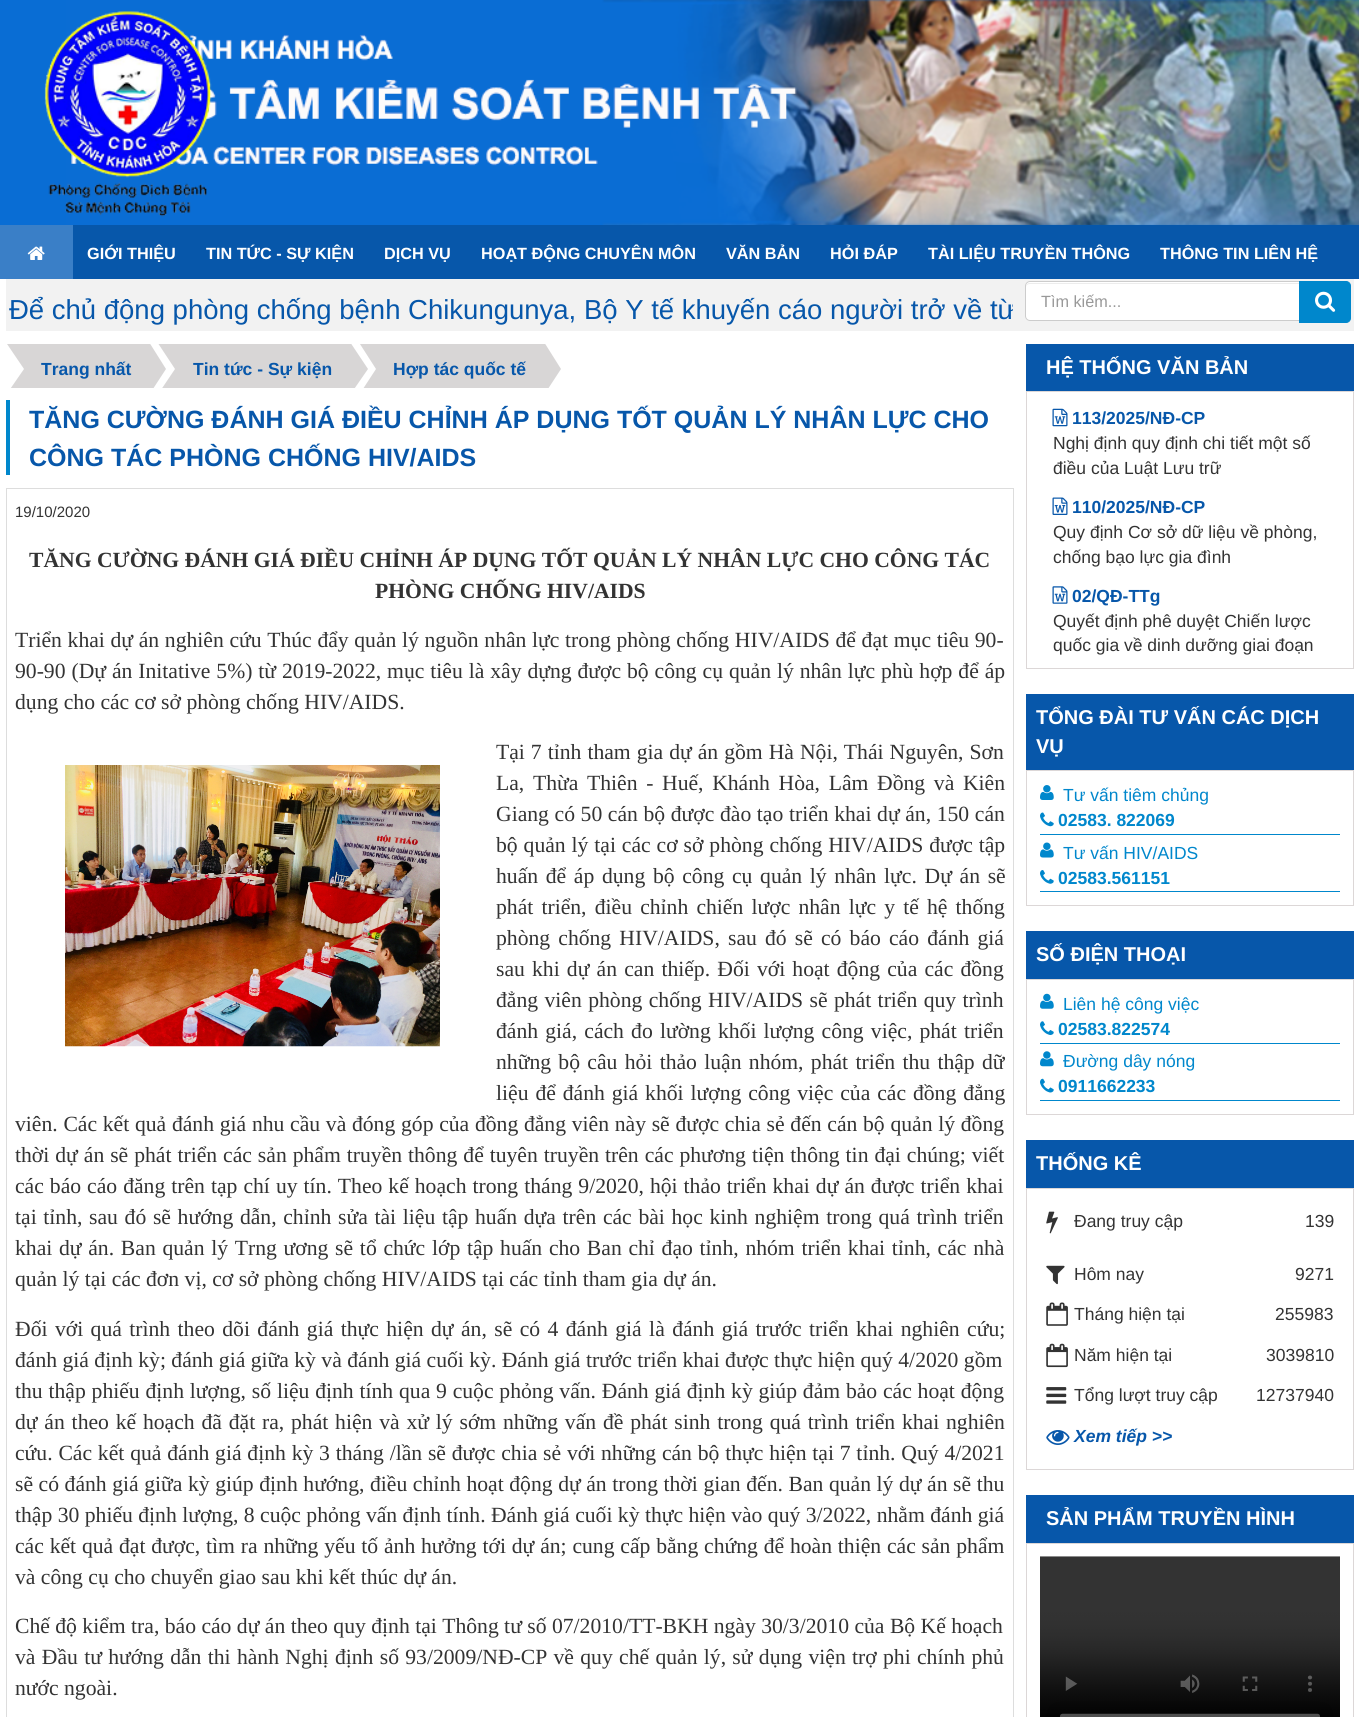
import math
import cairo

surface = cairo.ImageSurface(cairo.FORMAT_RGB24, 1359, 1717)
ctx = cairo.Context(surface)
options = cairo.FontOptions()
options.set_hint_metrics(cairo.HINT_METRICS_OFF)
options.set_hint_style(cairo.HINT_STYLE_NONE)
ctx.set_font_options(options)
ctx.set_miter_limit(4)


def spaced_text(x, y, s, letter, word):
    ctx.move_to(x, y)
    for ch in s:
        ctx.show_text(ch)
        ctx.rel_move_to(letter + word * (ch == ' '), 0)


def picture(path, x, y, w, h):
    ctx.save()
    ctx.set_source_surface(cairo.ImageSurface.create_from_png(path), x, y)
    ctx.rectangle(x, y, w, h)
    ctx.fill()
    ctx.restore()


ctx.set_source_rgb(1, 1, 1)
ctx.paint()
ctx.set_source_rgb(0.039, 0.427, 0.831)
ctx.rectangle(0, 0, 66, 225)
ctx.fill()
picture("img1.png", 66, 0, 1293, 225)
picture("img2.png", 44, 11, 168, 206)
ctx.set_source_rgb(0.031, 0.341, 0.667)
ctx.rectangle(73, 225, 1286, 54)
ctx.fill()
ctx.set_source_rgb(0.227, 0.498, 0.78)
ctx.rectangle(0, 225, 73, 54)
ctx.fill()
picture("img3.png", 27, 246, 18, 14)
ctx.select_font_face("Liberation Sans", cairo.FONT_SLANT_NORMAL, cairo.FONT_WEIGHT_BOLD)
ctx.set_font_size(16.25)
ctx.set_source_rgb(1, 1, 1)
ctx.move_to(87, 259)
ctx.show_text("GIỚI THIỆU")
ctx.move_to(206, 259)
ctx.show_text("TIN TỨC - SỰ KIỆN")
ctx.move_to(384, 259)
ctx.show_text("DỊCH VỤ")
ctx.move_to(481, 259)
ctx.show_text("HOẠT ĐỘNG CHUYÊN MÔN")
ctx.move_to(726, 259)
ctx.show_text("VĂN BẢN")
ctx.move_to(830, 259)
ctx.show_text("HỎI ĐÁP")
ctx.move_to(928, 259)
ctx.show_text("TÀI LIỆU TRUYỀN THÔNG")
ctx.move_to(1160, 259)
ctx.show_text("THÔNG TIN LIÊN HỆ")
ctx.set_source_rgb(0.949, 0.949, 0.949)
ctx.rectangle(6, 279, 1348, 52)
ctx.fill()
ctx.save()
ctx.rectangle(9, 281, 1004, 48)
ctx.clip()
ctx.select_font_face("Liberation Sans")
ctx.set_font_size(27.5)
ctx.set_source_rgb(0.031, 0.341, 0.667)
ctx.move_to(9, 319)
ctx.show_text("Để chủ động phòng chống bệnh Chikungunya, Bộ Y tế khuyến cáo người trở về từ")
ctx.restore()
ctx.set_source_rgb(1, 1, 1)
ctx.new_path()
ctx.move_to(1030, 281)
ctx.line_to(1300, 281)
ctx.line_to(1300, 321)
ctx.line_to(1030, 321)
ctx.curve_to(1027, 321, 1025, 319, 1025, 316)
ctx.line_to(1025, 286)
ctx.curve_to(1025, 283, 1027, 281, 1030, 281)
ctx.close_path()
ctx.fill()
ctx.set_source_rgb(0.925, 0.925, 0.925)
ctx.new_path()
ctx.move_to(1030, 284)
ctx.line_to(1299, 284)
ctx.line_to(1299, 283)
ctx.line_to(1030, 283)
ctx.curve_to(1027, 283, 1026, 285, 1026, 288)
ctx.curve_to(1026, 285, 1028, 284, 1030, 284)
ctx.close_path()
ctx.fill()
ctx.new_path()
ctx.move_to(1030, 281.5)
ctx.line_to(1299.5, 281.5)
ctx.line_to(1299.5, 320.5)
ctx.line_to(1030, 320.5)
ctx.curve_to(1027.5, 320.5, 1025.5, 318.5, 1025.5, 316)
ctx.line_to(1025.5, 286)
ctx.curve_to(1025.5, 283.5, 1027.5, 281.5, 1030, 281.5)
ctx.close_path()
ctx.set_source_rgb(0.8, 0.8, 0.8)
ctx.set_line_width(1)
ctx.stroke()
ctx.select_font_face("Liberation Sans")
ctx.set_source_rgb(0.6, 0.6, 0.6)
ctx.move_to(1041, 307)
ctx.show_text("Tìm kiếm...")
ctx.set_source_rgb(0, 0.529, 0.8)
ctx.new_path()
ctx.move_to(1299.5, 281.5)
ctx.line_to(1346, 281.5)
ctx.curve_to(1348.5, 281.5, 1350.5, 283.5, 1350.5, 286)
ctx.line_to(1350.5, 318)
ctx.curve_to(1350.5, 320.5, 1348.5, 322.5, 1346, 322.5)
ctx.line_to(1299.5, 322.5)
ctx.close_path()
ctx.fill_preserve()
ctx.stroke()
picture("img4.png", 1315, 291, 21, 21)
ctx.set_source_rgb(0.847, 0.839, 0.839)
ctx.rectangle(24, 344, 125, 44)
ctx.fill()
ctx.save()
ctx.rectangle(6, 344, 1008, 44)
ctx.clip()
ctx.new_path()
ctx.move_to(6, 342.5)
ctx.line_to(24, 342.5)
ctx.line_to(24, 369)
ctx.close_path()
ctx.move_to(24, 395)
ctx.line_to(6, 395)
ctx.line_to(24, 369)
ctx.close_path()
ctx.fill()
ctx.restore()
ctx.select_font_face("Liberation Sans", cairo.FONT_SLANT_NORMAL, cairo.FONT_WEIGHT_BOLD)
ctx.set_font_size(17.5)
ctx.set_source_rgb(0.031, 0.341, 0.667)
ctx.move_to(41, 375)
ctx.show_text("Trang nhất")
ctx.save()
ctx.rectangle(6, 344, 1008, 44)
ctx.clip()
ctx.set_source_rgb(0.847, 0.839, 0.839)
ctx.new_path()
ctx.move_to(149, 395)
ctx.line_to(149, 342)
ctx.line_to(166, 369)
ctx.close_path()
ctx.fill()
ctx.restore()
ctx.set_source_rgb(0.847, 0.839, 0.839)
ctx.rectangle(175, 344, 175, 44)
ctx.fill()
ctx.save()
ctx.rectangle(6, 344, 1008, 44)
ctx.clip()
ctx.new_path()
ctx.move_to(157.5, 342.5)
ctx.line_to(175, 342.5)
ctx.line_to(175, 369)
ctx.close_path()
ctx.move_to(175, 395)
ctx.line_to(157.5, 395)
ctx.line_to(175, 369)
ctx.close_path()
ctx.fill()
ctx.restore()
ctx.set_source_rgb(0.031, 0.341, 0.667)
ctx.move_to(193, 375)
ctx.show_text("Tin tức - Sự kiện")
ctx.save()
ctx.rectangle(6, 344, 1008, 44)
ctx.clip()
ctx.set_source_rgb(0.847, 0.839, 0.839)
ctx.new_path()
ctx.move_to(350, 395)
ctx.line_to(350, 342)
ctx.line_to(368, 369)
ctx.close_path()
ctx.fill()
ctx.restore()
ctx.set_source_rgb(0.847, 0.839, 0.839)
ctx.rectangle(376, 344, 168, 44)
ctx.fill()
ctx.save()
ctx.rectangle(6, 344, 1008, 44)
ctx.clip()
ctx.new_path()
ctx.move_to(359, 342.5)
ctx.line_to(376, 342.5)
ctx.line_to(376, 369)
ctx.close_path()
ctx.move_to(376, 395)
ctx.line_to(359, 395)
ctx.line_to(376, 369)
ctx.close_path()
ctx.fill()
ctx.restore()
ctx.set_source_rgb(0.031, 0.341, 0.667)
ctx.move_to(393, 375)
ctx.show_text("Hợp tác quốc tế")
ctx.save()
ctx.rectangle(6, 344, 1008, 44)
ctx.clip()
ctx.set_source_rgb(0.847, 0.839, 0.839)
ctx.new_path()
ctx.move_to(544, 395)
ctx.line_to(544, 342)
ctx.line_to(561, 369)
ctx.close_path()
ctx.fill()
ctx.restore()
ctx.set_source_rgb(0, 0.529, 0.8)
ctx.rectangle(6, 400, 4, 75)
ctx.fill()
ctx.set_font_size(25)
ctx.set_source_rgb(0.031, 0.341, 0.667)
ctx.move_to(29, 428)
ctx.show_text("TĂNG CƯỜNG ĐÁNH GIÁ ĐIỀU CHỈNH ÁP DỤNG TỐT QUẢN LÝ NHÂN LỰC CHO")
ctx.move_to(29, 466)
ctx.show_text("CÔNG TÁC PHÒNG CHỐNG HIV/AIDS")
ctx.rectangle(6.5, 488.5, 1007, 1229)
ctx.set_source_rgb(0.867, 0.867, 0.867)
ctx.stroke()
ctx.select_font_face("Liberation Sans")
ctx.set_font_size(15)
ctx.set_source_rgb(0.2, 0.2, 0.2)
ctx.move_to(15, 517)
ctx.show_text("19/10/2020")
ctx.select_font_face("Liberation Serif", cairo.FONT_SLANT_NORMAL, cairo.FONT_WEIGHT_BOLD)
ctx.set_font_size(21.65)
ctx.move_to(29, 567)
ctx.show_text("TĂNG CƯỜNG ĐÁNH GIÁ ĐIỀU CHỈNH ÁP DỤNG TỐT QUẢN LÝ NHÂN LỰC CHO CÔNG TÁC")
ctx.move_to(375, 598)
ctx.show_text("PHÒNG CHỐNG HIV/AIDS")
ctx.select_font_face("Liberation Serif")
spaced_text(15, 647, "Triển khai dự án nghiên cứu Thúc đẩy quản lý nguồn nhân lực trong phòng chống HIV/AIDS để đạt mục tiêu 90-", 0, 0.25)
spaced_text(15, 678, "90-90 (Dự án Initative 5%) từ 2019-2022, mục tiêu là xây dựng được bộ công cụ quản lý nhân lực phù hợp để áp", 0, 0.5)
ctx.move_to(15, 709)
ctx.show_text("dụng cho các cơ sở phòng chống HIV/AIDS.")
spaced_text(496, 759, "Tại 7 tỉnh tham gia dự án gồm Hà Nội, Thái Nguyên, Sơn", 0, 0.6)
spaced_text(496, 790, "La, Thừa Thiên - Huế, Khánh Hòa, Lâm Đồng và Kiên", 0, 3.25)
spaced_text(496, 821, "Giang có 50 cán bộ được đào tạo triển khai dự án, 150 cán", 0, 0.2)
spaced_text(496, 852, "bộ quản lý tại các cơ sở phòng chống HIV/AIDS được tập", 0, 0.5)
spaced_text(496, 883, "huấn để áp dụng bộ công cụ quản lý nhân lực. Dự án sẽ", 0, 2.25)
spaced_text(496, 914, "phát triển, điều chỉnh chiến lược nhân lực y tế hệ thống", 0, 2.75)
spaced_text(496, 945, "phòng chống HIV/AIDS, sau đó sẽ có báo cáo đánh giá", 0, 2.75)
spaced_text(496, 976, "sau khi dự án can thiếp. Đối với hoạt động của các đồng", 0, 1.75)
spaced_text(496, 1007, "đẳng viên phòng chống HIV/AIDS sẽ phát triển quy trình", 0, 1)
spaced_text(496, 1038, "đánh giá, cách đo lường khối lượng công việc, phát triển", 0, 1.75)
ctx.save()
ctx.rectangle(15, 545, 990, 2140)
ctx.clip()
spaced_text(496, 1069, "những bộ câu hỏi thảo luận nhóm, phát triển thu thập dữ", 0, 1.9)
ctx.restore()
spaced_text(496, 1100, "liệu để đánh giá khối lượng công việc của các đồng đẳng", 0, 1.5)
spaced_text(15, 1131, "viên. Các kết quả đánh giá nhu cầu và đóng góp của đồng đẳng viên này sẽ được chia sẻ đến cán bộ quản lý đồng", 0, 0.3)
spaced_text(15, 1162, "thời dự án sẽ phát triển các sản phẩm truyền thông để tuyên truyền trên các phương tiện thông tin đại chúng; viết", 0, 0.55)
spaced_text(15, 1193, "các báo cáo đăng trên tạp chí uy tín. Theo kế hoạch trong tháng 9/2020, hội thảo triển khai dự án được triển khai", 0, 0.6)
spaced_text(15, 1224, "tại tỉnh, sau đó sẽ hướng dẫn, chỉnh sửa tài liệu tập huấn dựa trên các bài học kinh nghiệm trong quá trình triển", 0, 1.25)
spaced_text(15, 1255, "khai dự án. Ban quản lý Trng ương sẽ tổ chức lớp tập huấn cho Ban chỉ đạo tỉnh, nhóm triển khai tỉnh, các nhà", 0, 1.3)
ctx.move_to(15, 1286)
ctx.show_text("quản lý tại các đơn vị, cơ sở phòng chống HIV/AIDS tại các tỉnh tham gia dự án.")
picture("img5.png", 65, 765, 375, 282)
spaced_text(15, 1336, "Đối với quá trình theo dõi đánh giá thực hiện dự án, sẽ có 4 đánh giá là đánh giá trước triển khai nghiên cứu;", 0, 2)
ctx.move_to(15, 1367)
ctx.show_text("đánh giá định kỳ; đánh giá giữa kỳ và đánh giá cuối kỳ. Đánh giá trước triển khai được thực hiện quý 4/2020 gồm")
spaced_text(15, 1398, "thu thập phiếu định lượng, số liệu định tính qua 9 cuộc phỏng vấn. Đánh giá định kỳ giúp đảm bảo các hoạt động", 0, 0.4)
spaced_text(15, 1429, "dự án theo kế hoạch đã đặt ra, phát hiện và xử lý sớm những vấn đề phát sinh trong quá trình triển khai nghiên", 0, 1.4)
spaced_text(15, 1460, "cứu. Các kết quả đánh giá định kỳ 3 tháng /lần sẽ được chia sẻ với những cán bộ thực hiện tại 7 tỉnh. Quý 4/2021", 0, 0.4)
spaced_text(15, 1491, "sẽ có đánh giá giữa kỳ giúp định hướng, điều chỉnh hoạt động dự án trong thời gian đến. Ban quản lý dự án sẽ thu", 0, 0.15)
ctx.move_to(15, 1522)
ctx.show_text("thập 30 phiếu định lượng, 8 cuộc phỏng vấn định tính. Đánh giá cuối kỳ thực hiện vào quý 3/2022, nhằm đánh giá")
spaced_text(15, 1553, "các kết quả đạt được, tìm ra những yếu tố ảnh hưởng tới dự án; cung cấp bằng chứng để hoàn thiện các sản phẩm", 0, 0.4)
ctx.move_to(15, 1584)
ctx.show_text("và công cụ cho chuyển giao sau khi kết thúc dự án.")
ctx.move_to(15, 1633)
ctx.show_text("Chế độ kiểm tra, báo cáo dự án theo quy định tại Thông tư số 07/2010/TT-BKH ngày 30/3/2010 của Bộ Kế hoạch")
spaced_text(15, 1664, "và Đầu tư hướng dẫn thi hành Nghị định số 93/2009/NĐ-CP về quy chế quản lý, sử dụng viện trợ phi chính phủ", 0, 0.9)
ctx.move_to(15, 1695)
ctx.show_text("nước ngoài.")
ctx.set_source_rgb(0.031, 0.341, 0.667)
ctx.rectangle(1026, 344, 328, 47)
ctx.fill()
ctx.select_font_face("Liberation Sans", cairo.FONT_SLANT_NORMAL, cairo.FONT_WEIGHT_BOLD)
ctx.set_font_size(20)
ctx.set_source_rgb(1, 1, 1)
ctx.move_to(1046, 374)
ctx.show_text("HỆ THỐNG VĂN BẢN")
ctx.rectangle(1026.5, 391.5, 327, 277)
ctx.set_source_rgb(0.863, 0.843, 0.843)
ctx.stroke()
picture("img6.png", 1052, 408, 16, 19)
ctx.set_font_size(17.5)
ctx.set_source_rgb(0.031, 0.341, 0.667)
ctx.move_to(1072, 424)
ctx.show_text("113/2025/NĐ-CP")
ctx.select_font_face("Liberation Sans")
ctx.set_source_rgb(0.2, 0.2, 0.2)
ctx.move_to(1053, 449)
ctx.show_text("Nghị định quy định chi tiết một số")
ctx.move_to(1053, 474)
ctx.show_text("điều của Luật Lưu trữ")
picture("img7.png", 1052, 497, 16, 18)
ctx.select_font_face("Liberation Sans", cairo.FONT_SLANT_NORMAL, cairo.FONT_WEIGHT_BOLD)
ctx.set_source_rgb(0.031, 0.341, 0.667)
ctx.move_to(1072, 513)
ctx.show_text("110/2025/NĐ-CP")
ctx.select_font_face("Liberation Sans")
ctx.set_source_rgb(0.2, 0.2, 0.2)
ctx.move_to(1053, 538)
ctx.show_text("Quy định Cơ sở dữ liệu về phòng,")
ctx.move_to(1053, 563)
ctx.show_text("chống bạo lực gia đình")
picture("img8.png", 1052, 586, 16, 18)
ctx.select_font_face("Liberation Sans", cairo.FONT_SLANT_NORMAL, cairo.FONT_WEIGHT_BOLD)
ctx.set_source_rgb(0.031, 0.341, 0.667)
ctx.move_to(1072, 602)
ctx.show_text("02/QĐ-TTg")
ctx.select_font_face("Liberation Sans")
ctx.set_source_rgb(0.2, 0.2, 0.2)
ctx.move_to(1053, 627)
ctx.show_text("Quyết định phê duyệt Chiến lược")
ctx.move_to(1053, 651)
ctx.show_text("quốc gia về dinh dưỡng giai đoạn")
ctx.set_source_rgb(0.031, 0.341, 0.667)
ctx.rectangle(1026, 694, 328, 76)
ctx.fill()
ctx.select_font_face("Liberation Sans", cairo.FONT_SLANT_NORMAL, cairo.FONT_WEIGHT_BOLD)
ctx.set_font_size(20)
ctx.set_source_rgb(1, 1, 1)
ctx.move_to(1036, 724)
ctx.show_text("TỔNG ĐÀI TƯ VẤN CÁC DỊCH")
ctx.move_to(1036, 753)
ctx.show_text("VỤ")
ctx.rectangle(1026.5, 770.5, 327, 135)
ctx.set_source_rgb(0.863, 0.843, 0.843)
ctx.stroke()
ctx.set_source_rgb(0, 0.529, 0.8)
ctx.rectangle(1040, 834, 300, 1)
ctx.fill()
picture("img9.png", 1040, 785, 14, 15)
ctx.select_font_face("Liberation Sans")
ctx.set_font_size(17.5)
ctx.move_to(1063, 801)
ctx.show_text("Tư vấn tiêm chủng")
picture("img10.png", 1040, 812, 14, 15)
ctx.select_font_face("Liberation Sans", cairo.FONT_SLANT_NORMAL, cairo.FONT_WEIGHT_BOLD)
ctx.move_to(1058, 826)
ctx.show_text("02583. 822069")
ctx.rectangle(1040, 891, 300, 1)
ctx.fill()
picture("img11.png", 1040, 842, 14, 16)
ctx.select_font_face("Liberation Sans")
ctx.move_to(1063, 859)
ctx.show_text("Tư vấn HIV/AIDS")
picture("img12.png", 1040, 870, 14, 14)
ctx.select_font_face("Liberation Sans", cairo.FONT_SLANT_NORMAL, cairo.FONT_WEIGHT_BOLD)
ctx.move_to(1058, 884)
ctx.show_text("02583.561151")
ctx.set_source_rgb(0.031, 0.341, 0.667)
ctx.rectangle(1026, 931, 328, 48)
ctx.fill()
ctx.set_font_size(20)
ctx.set_source_rgb(1, 1, 1)
ctx.move_to(1036, 961)
ctx.show_text("SỐ ĐIỆN THOẠI")
ctx.rectangle(1026.5, 979.5, 327, 135)
ctx.set_source_rgb(0.863, 0.843, 0.843)
ctx.stroke()
ctx.set_source_rgb(0, 0.529, 0.8)
ctx.rectangle(1040, 1043, 300, 1)
ctx.fill()
picture("img13.png", 1040, 993, 14, 16)
ctx.select_font_face("Liberation Sans")
ctx.set_font_size(17.5)
ctx.move_to(1063, 1010)
ctx.show_text("Liên hệ công việc")
picture("img14.png", 1040, 1021, 14, 14)
ctx.select_font_face("Liberation Sans", cairo.FONT_SLANT_NORMAL, cairo.FONT_WEIGHT_BOLD)
ctx.move_to(1058, 1035)
ctx.show_text("02583.822574")
ctx.rectangle(1040, 1100, 300, 1)
ctx.fill()
picture("img15.png", 1040, 1051, 14, 16)
ctx.select_font_face("Liberation Sans")
ctx.move_to(1063, 1067)
ctx.show_text("Đường dây nóng")
picture("img16.png", 1040, 1078, 14, 15)
ctx.select_font_face("Liberation Sans", cairo.FONT_SLANT_NORMAL, cairo.FONT_WEIGHT_BOLD)
ctx.move_to(1058, 1092)
ctx.show_text("0911662233")
ctx.set_source_rgb(0.031, 0.341, 0.667)
ctx.rectangle(1026, 1140, 328, 48)
ctx.fill()
ctx.set_font_size(20)
ctx.set_source_rgb(1, 1, 1)
ctx.move_to(1036, 1170)
ctx.show_text("THỐNG KÊ")
ctx.rectangle(1026.5, 1188.5, 327, 281)
ctx.set_source_rgb(0.863, 0.843, 0.843)
ctx.stroke()
picture("img17.png", 1046, 1211, 12, 23)
ctx.select_font_face("Liberation Sans")
ctx.set_font_size(17.5)
ctx.set_source_rgb(0.2, 0.2, 0.2)
ctx.move_to(1074, 1227)
ctx.show_text("Đang truy cập")
ctx.move_to(1305, 1227)
ctx.show_text("139")
picture("img18.png", 1046, 1265, 19, 20)
ctx.move_to(1074, 1280)
ctx.show_text("Hôm nay")
ctx.move_to(1295, 1280)
ctx.show_text("9271")
picture("img19.png", 1046, 1302, 22, 24)
ctx.move_to(1074, 1320)
ctx.show_text("Tháng hiện tại")
ctx.move_to(1275, 1320)
ctx.show_text("255983")
picture("img20.png", 1046, 1343, 22, 25)
ctx.move_to(1074, 1361)
ctx.show_text("Năm hiện tại")
ctx.move_to(1266, 1361)
ctx.show_text("3039810")
picture("img21.png", 1046, 1387, 21, 17)
ctx.move_to(1074, 1401)
ctx.show_text("Tổng lượt truy cập")
ctx.move_to(1256, 1401)
ctx.show_text("12737940")
picture("img22.png", 1046, 1430, 24, 15)
ctx.select_font_face("Liberation Sans", cairo.FONT_SLANT_ITALIC, cairo.FONT_WEIGHT_BOLD)
ctx.set_source_rgb(0.031, 0.341, 0.667)
ctx.move_to(1074, 1442)
ctx.show_text("Xem tiếp >>")
ctx.rectangle(1026, 1495, 328, 48)
ctx.fill()
ctx.select_font_face("Liberation Sans", cairo.FONT_SLANT_NORMAL, cairo.FONT_WEIGHT_BOLD)
ctx.set_font_size(20)
ctx.set_source_rgb(1, 1, 1)
ctx.move_to(1046, 1525)
ctx.show_text("SẢN PHẨM TRUYỀN HÌNH")
ctx.rectangle(1026.5, 1543.5, 327, 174)
ctx.set_source_rgb(0.863, 0.843, 0.843)
ctx.stroke()
picture("img23.png", 1040, 1556, 300, 161)
surface.write_to_png("page.png")
